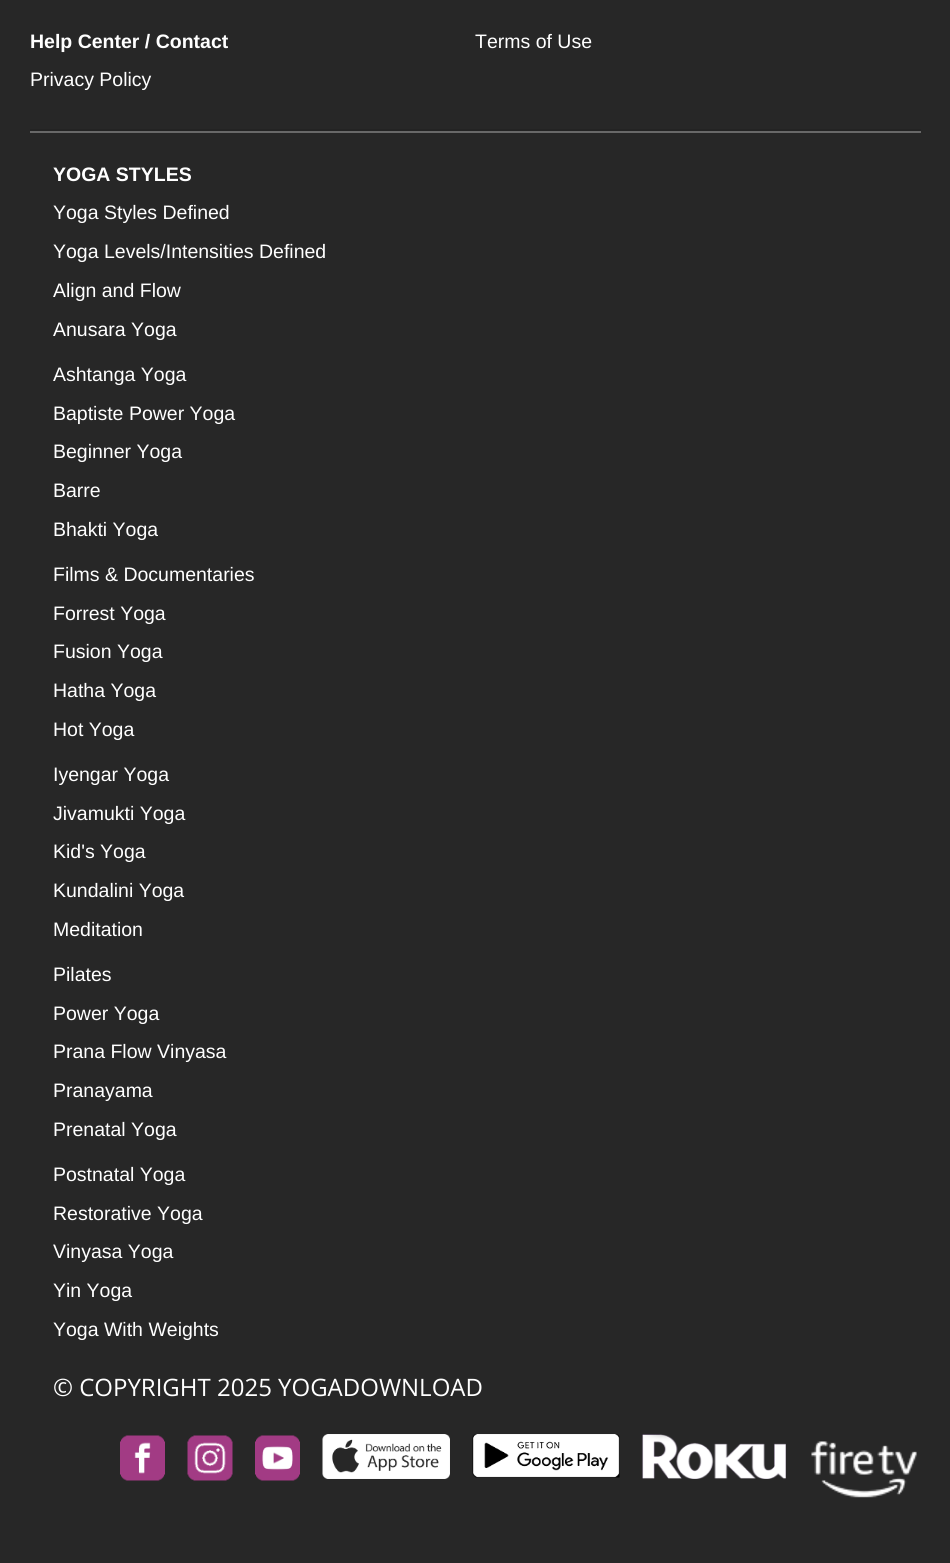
import math
import cairo

surface = cairo.ImageSurface(cairo.FORMAT_RGB24, 950, 1563)
ctx = cairo.Context(surface)
options = cairo.FontOptions()
options.set_hint_metrics(cairo.HINT_METRICS_OFF)
options.set_hint_style(cairo.HINT_STYLE_NONE)
ctx.set_font_options(options)
ctx.set_miter_limit(4)


def picture(path, x, y, w, h):
    ctx.save()
    ctx.set_source_surface(cairo.ImageSurface.create_from_png(path), x, y)
    ctx.rectangle(x, y, w, h)
    ctx.fill()
    ctx.restore()


ctx.set_source_rgb(0.153, 0.153, 0.153)
ctx.paint()
ctx.select_font_face("Liberation Sans", cairo.FONT_SLANT_NORMAL, cairo.FONT_WEIGHT_BOLD)
ctx.set_font_size(19.5)
ctx.set_source_rgb(1, 1, 1)
ctx.move_to(30, 48)
ctx.show_text("Help Center / Contact")
ctx.select_font_face("Liberation Sans")
ctx.move_to(475, 48)
ctx.show_text("Terms of Use")
ctx.move_to(30, 86)
ctx.show_text("Privacy Policy")
ctx.set_source_rgb(0.137, 0.137, 0.137)
ctx.rectangle(30, 129, 891, 2)
ctx.fill()
ctx.set_source_rgb(0.408, 0.408, 0.408)
ctx.rectangle(30, 131, 891, 2)
ctx.fill()
ctx.select_font_face("Liberation Sans", cairo.FONT_SLANT_NORMAL, cairo.FONT_WEIGHT_BOLD)
ctx.set_source_rgb(1, 1, 1)
ctx.move_to(53, 181)
ctx.show_text("YOGA STYLES")
ctx.select_font_face("Liberation Sans")
ctx.move_to(53, 219)
ctx.show_text("Yoga Styles Defined")
ctx.move_to(53, 258)
ctx.show_text("Yoga Levels/Intensities Defined")
ctx.move_to(53, 297)
ctx.show_text("Align and Flow")
ctx.move_to(53, 336)
ctx.show_text("Anusara Yoga")
ctx.move_to(53, 381)
ctx.show_text("Ashtanga Yoga")
ctx.move_to(53, 420)
ctx.show_text("Baptiste Power Yoga")
ctx.move_to(53, 458)
ctx.show_text("Beginner Yoga")
ctx.move_to(53, 497)
ctx.show_text("Barre")
ctx.move_to(53, 536)
ctx.show_text("Bhakti Yoga")
ctx.move_to(53, 581)
ctx.show_text("Films & Documentaries")
ctx.move_to(53, 620)
ctx.show_text("Forrest Yoga")
ctx.move_to(53, 658)
ctx.show_text("Fusion Yoga")
ctx.move_to(53, 697)
ctx.show_text("Hatha Yoga")
ctx.move_to(53, 736)
ctx.show_text("Hot Yoga")
ctx.move_to(53, 781)
ctx.show_text("Iyengar Yoga")
ctx.move_to(53, 820)
ctx.show_text("Jivamukti Yoga")
ctx.move_to(53, 858)
ctx.show_text("Kid's Yoga")
ctx.move_to(53, 897)
ctx.show_text("Kundalini Yoga")
ctx.move_to(53, 936)
ctx.show_text("Meditation")
ctx.move_to(53, 981)
ctx.show_text("Pilates")
ctx.move_to(53, 1020)
ctx.show_text("Power Yoga")
ctx.move_to(53, 1058)
ctx.show_text("Prana Flow Vinyasa")
ctx.move_to(53, 1097)
ctx.show_text("Pranayama")
ctx.move_to(53, 1136)
ctx.show_text("Prenatal Yoga")
ctx.move_to(53, 1181)
ctx.show_text("Postnatal Yoga")
ctx.move_to(53, 1220)
ctx.show_text("Restorative Yoga")
ctx.move_to(53, 1258)
ctx.show_text("Vinyasa Yoga")
ctx.move_to(53, 1297)
ctx.show_text("Yin Yoga")
ctx.move_to(53, 1336)
ctx.show_text("Yoga With Weights")
ctx.select_font_face("Open Sans")
ctx.set_font_size(24)
ctx.move_to(53, 1396)
ctx.show_text("© COPYRIGHT 2025 YOGADOWNLOAD")
picture("img1.png", 120, 1435, 45, 46)
picture("img2.png", 187, 1435, 46, 46)
picture("img3.png", 255, 1435, 45, 46)
picture("img4.png", 322, 1434, 128, 45)
picture("img5.png", 472, 1434, 148, 44)
picture("img6.png", 642, 1434, 144, 45)
picture("img7.png", 811, 1441, 106, 57)
surface.write_to_png("page.png")
